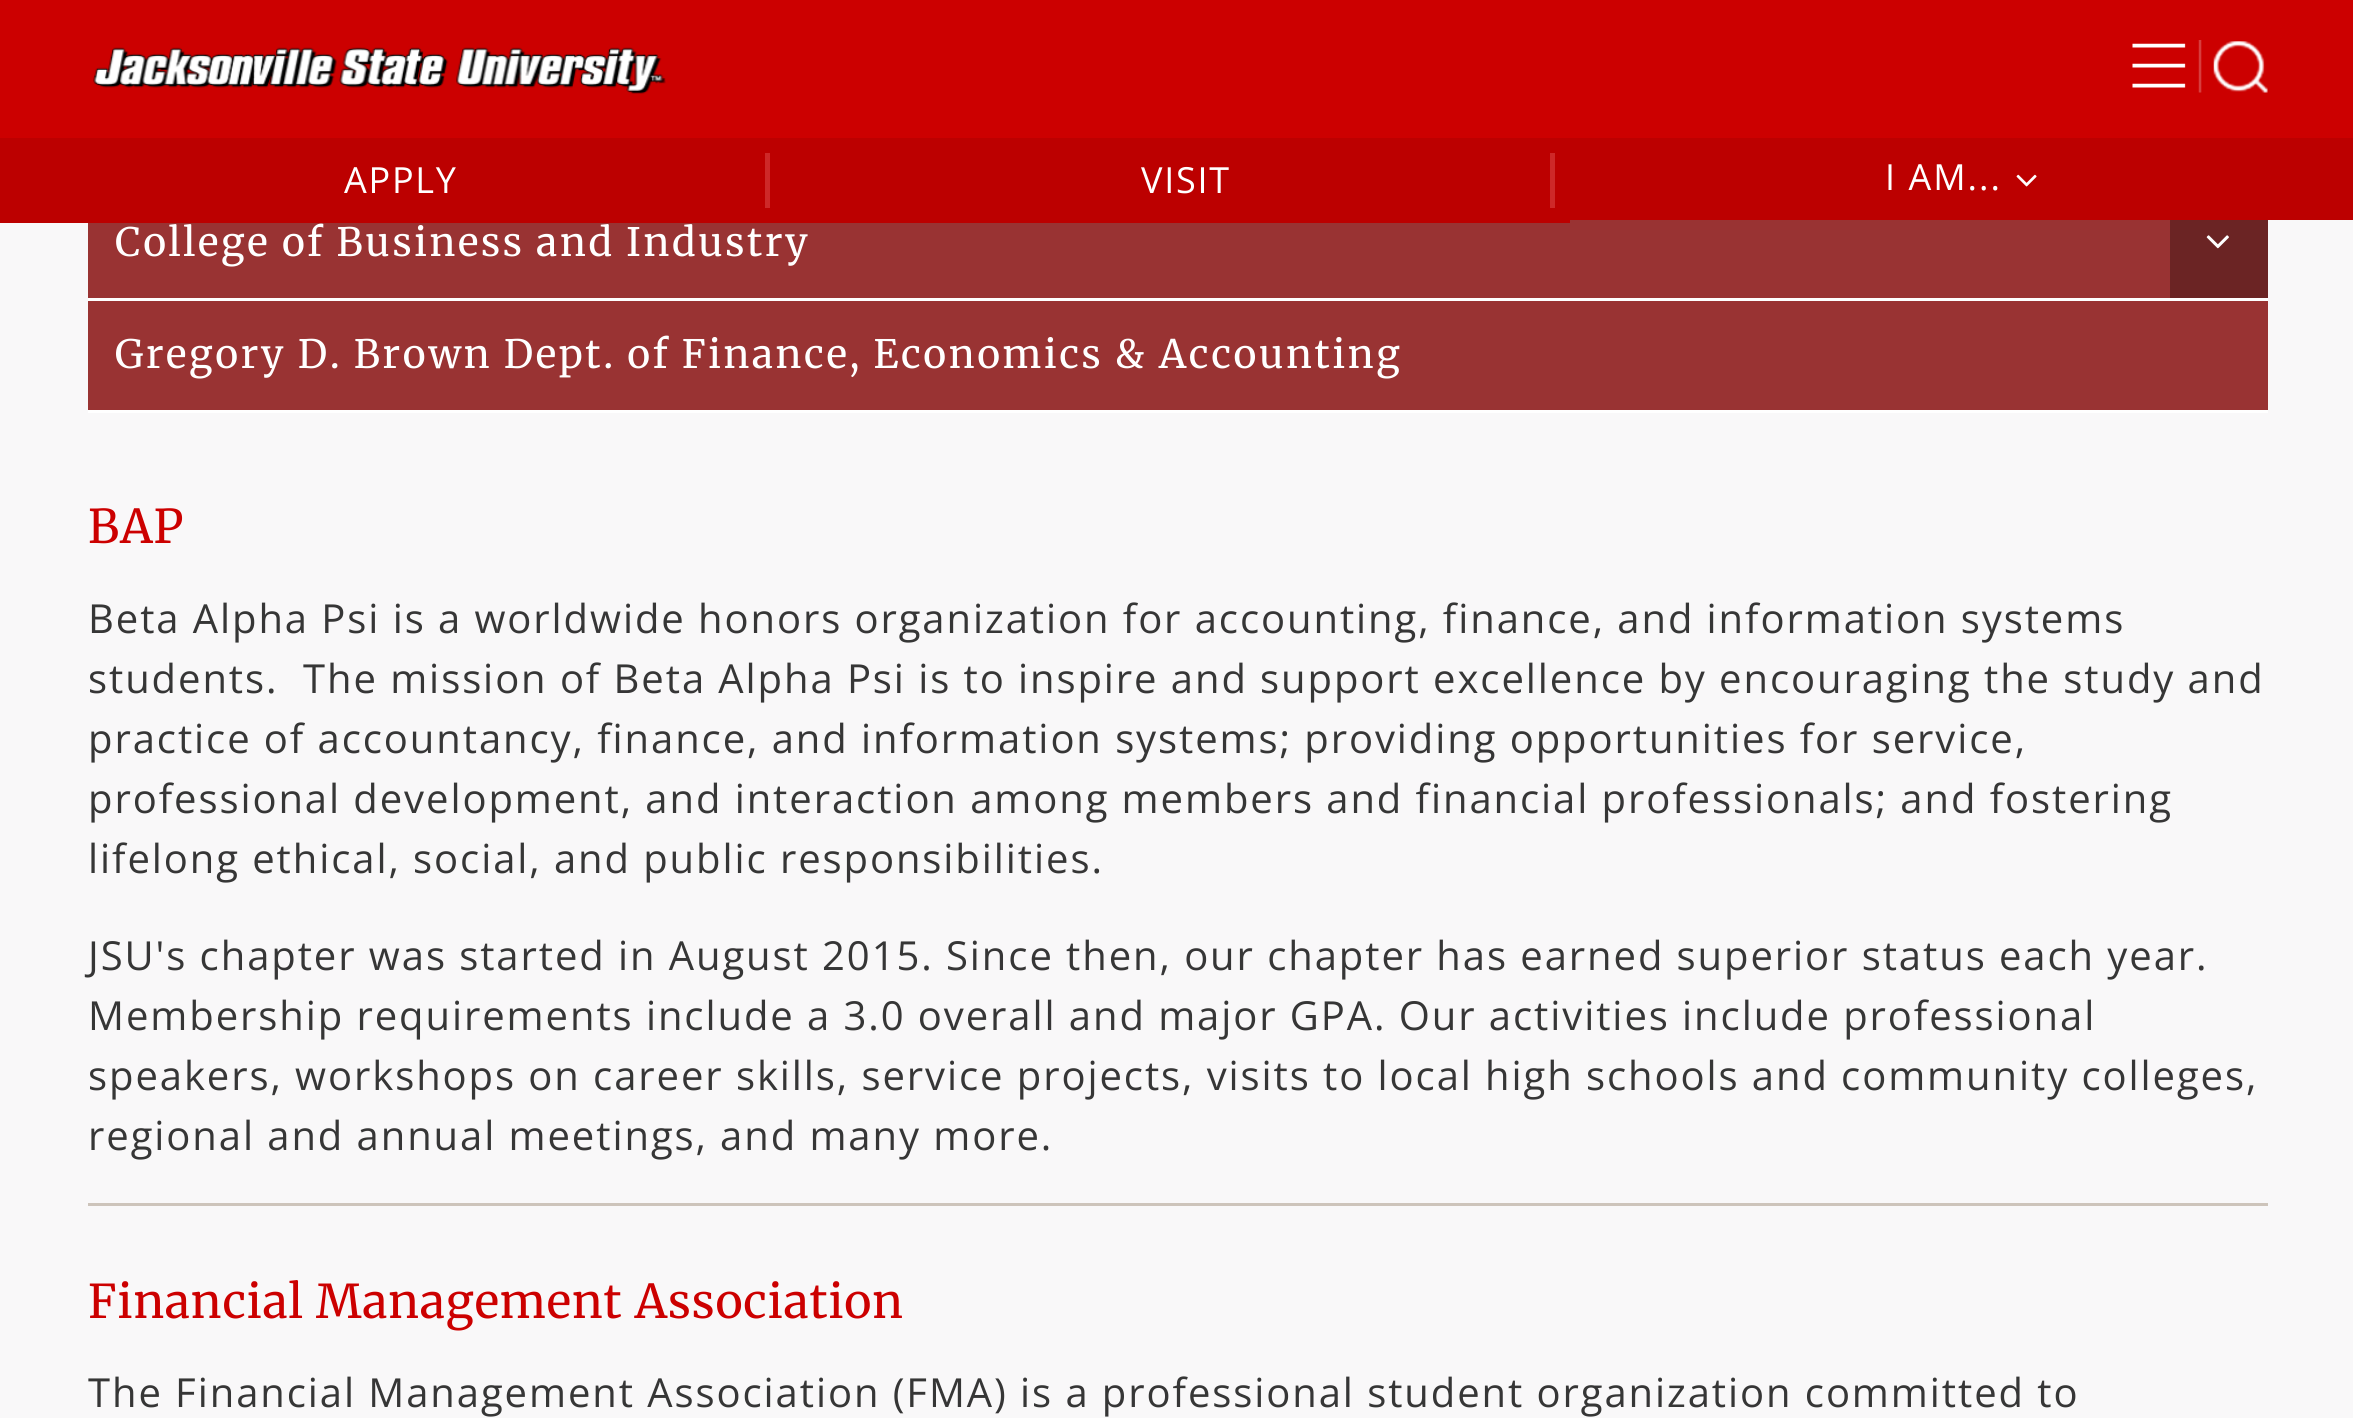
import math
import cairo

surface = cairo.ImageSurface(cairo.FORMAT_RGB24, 2353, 1418)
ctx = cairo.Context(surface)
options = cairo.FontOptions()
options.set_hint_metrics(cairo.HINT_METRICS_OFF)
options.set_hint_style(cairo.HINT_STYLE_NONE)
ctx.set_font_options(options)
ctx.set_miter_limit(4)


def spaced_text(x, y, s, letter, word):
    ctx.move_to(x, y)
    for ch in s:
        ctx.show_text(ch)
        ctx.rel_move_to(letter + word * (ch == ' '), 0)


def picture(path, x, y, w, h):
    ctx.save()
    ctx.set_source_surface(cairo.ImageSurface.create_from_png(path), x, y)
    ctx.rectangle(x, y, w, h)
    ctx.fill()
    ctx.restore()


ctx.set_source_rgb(0.976, 0.969, 0.973)
ctx.paint()
ctx.set_source_rgb(0.8, 0, 0)
ctx.rectangle(0, 0, 2353, 138)
ctx.fill()
picture("img1.png", 93, 47, 573, 47)
picture("img2.png", 2132, 40, 136, 53)
ctx.set_source_rgb(0.737, 0, 0)
ctx.rectangle(1570, 138, 783, 82)
ctx.fill()
ctx.set_source_rgb(0.6, 0.2, 0.2)
ctx.rectangle(88, 220, 2180, 190)
ctx.fill()
ctx.set_source_rgb(0.737, 0, 0)
ctx.rectangle(0, 138, 1570, 85)
ctx.fill()
ctx.set_source_rgb(0.808, 0.157, 0.157)
ctx.rectangle(765, 153, 5, 55)
ctx.fill()
ctx.select_font_face("Open Sans")
ctx.set_font_size(36)
ctx.set_source_rgb(1, 1, 1)
spaced_text(344, 193, "APPLY", 1.75, 0)
ctx.set_source_rgb(0.808, 0.157, 0.157)
ctx.rectangle(1550, 153, 5, 55)
ctx.fill()
ctx.set_source_rgb(1, 1, 1)
spaced_text(1141, 193, "VISIT", 1.75, 0)
spaced_text(1885, 190, "I AM...", 2, 0)
picture("img3.png", 2016, 174, 21, 13)
ctx.rectangle(88, 298, 2180, 3)
ctx.fill()
ctx.select_font_face("Merriweather Light")
ctx.set_font_size(39.05)
spaced_text(115, 256, "College of Business and Industry", 2.6, 0)
ctx.rectangle(88, 410, 2180, 3)
ctx.fill()
spaced_text(115, 368, "Gregory D. Brown Dept. of Finance, Economics & Accounting", 2.6, -0.25)
ctx.set_source_rgb(0.42, 0.141, 0.141)
ctx.rectangle(2170, 220, 98, 78)
ctx.fill()
picture("img4.png", 2206, 235, 23, 14)
ctx.set_font_size(46.4)
ctx.set_source_rgb(0.8, 0, 0)
spaced_text(88, 543, "BAP", 0.9, 0)
ctx.select_font_face("Open Sans")
ctx.set_font_size(40)
ctx.set_source_rgb(0.212, 0.212, 0.212)
spaced_text(88, 633, "Beta Alpha Psi is a worldwide honors organization for accounting, finance, and information systems", 1.92, 0)
spaced_text(88, 693, "students.  The mission of Beta Alpha Psi is to inspire and support excellence by encouraging the study and", 1.92, 0)
spaced_text(88, 753, "practice of accountancy, finance, and information systems; providing opportunities for service,", 1.92, 0)
spaced_text(88, 813, "professional development, and interaction among members and financial professionals; and fostering", 1.92, 0)
spaced_text(88, 873, "lifelong ethical, social, and public responsibilities.", 1.92, 0)
spaced_text(88, 970, "JSU's chapter was started in August 2015. Since then, our chapter has earned superior status each year.", 1.92, 0)
spaced_text(88, 1030, "Membership requirements include a 3.0 overall and major GPA. Our activities include professional", 1.92, 0)
spaced_text(88, 1090, "speakers, workshops on career skills, service projects, visits to local high schools and community colleges,", 1.92, 0)
spaced_text(88, 1150, "regional and annual meetings, and many more.", 1.92, 0)
ctx.set_source_rgb(0.804, 0.769, 0.733)
ctx.rectangle(88, 1203, 2180, 3)
ctx.fill()
ctx.select_font_face("Merriweather Light")
ctx.set_font_size(46.4)
ctx.set_source_rgb(0.8, 0, 0)
spaced_text(88, 1318, "Financial Management Association", 0.9, 0)
ctx.select_font_face("Open Sans")
ctx.set_font_size(40)
ctx.set_source_rgb(0.212, 0.212, 0.212)
spaced_text(88, 1407, "The Financial Management Association (FMA) is a professional student organization committed to", 1.92, 0)
surface.write_to_png("page.png")
